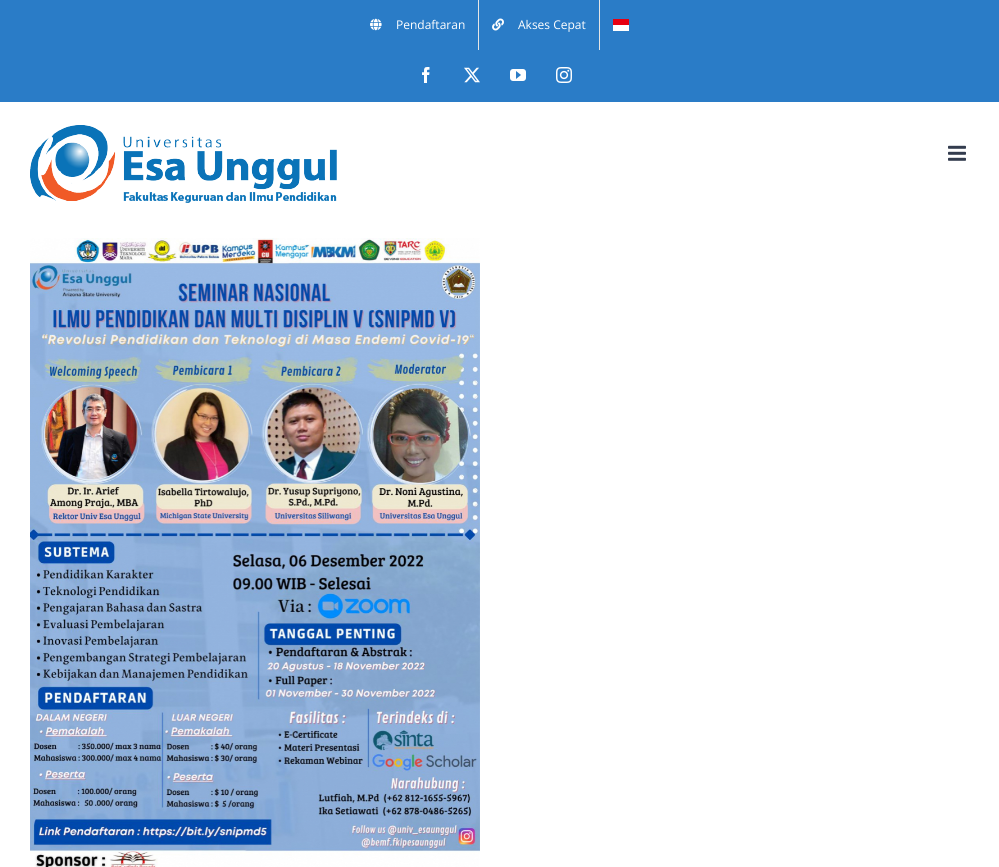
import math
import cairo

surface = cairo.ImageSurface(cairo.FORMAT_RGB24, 999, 867)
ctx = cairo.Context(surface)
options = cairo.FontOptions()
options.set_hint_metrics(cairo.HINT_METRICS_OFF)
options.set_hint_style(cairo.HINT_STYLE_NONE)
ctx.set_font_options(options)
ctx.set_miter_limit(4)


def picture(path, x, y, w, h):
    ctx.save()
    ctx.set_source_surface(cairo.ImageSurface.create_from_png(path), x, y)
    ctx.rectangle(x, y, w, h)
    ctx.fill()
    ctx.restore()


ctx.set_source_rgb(1, 1, 1)
ctx.paint()
ctx.set_source_rgb(0.165, 0.486, 0.78)
ctx.rectangle(0, 0, 999, 102)
ctx.fill()
picture("img1.png", 370, 18, 12, 13)
ctx.select_font_face("Open Sans")
ctx.set_font_size(12)
ctx.set_source_rgb(1, 1, 1)
ctx.move_to(396, 29)
ctx.show_text("Pendaftaran")
ctx.set_source_rgb(0.898, 0.898, 0.898)
ctx.rectangle(478, 0, 1, 50)
ctx.fill()
picture("img2.png", 492, 18, 12, 13)
ctx.set_source_rgb(1, 1, 1)
ctx.move_to(518, 29)
ctx.show_text("Akses Cepat")
ctx.set_source_rgb(0.898, 0.898, 0.898)
ctx.rectangle(599, 0, 1, 50)
ctx.fill()
ctx.set_source_rgb(0.906, 0, 0.067)
ctx.rectangle(613, 19, 16, 6)
ctx.fill()
ctx.set_source_rgb(1, 1, 1)
ctx.rectangle(613, 25, 16, 6)
ctx.fill()
picture("img3.png", 422, 67, 8, 16)
picture("img4.png", 464, 67, 16, 16)
picture("img5.png", 510, 69, 16, 12)
picture("img6.png", 556, 67, 16, 16)
picture("img7.png", 30, 125, 307, 78)
picture("img8.png", 948, 145, 18, 16)
picture("img9.png", 30, 238, 450, 629)
surface.write_to_png("page.png")
